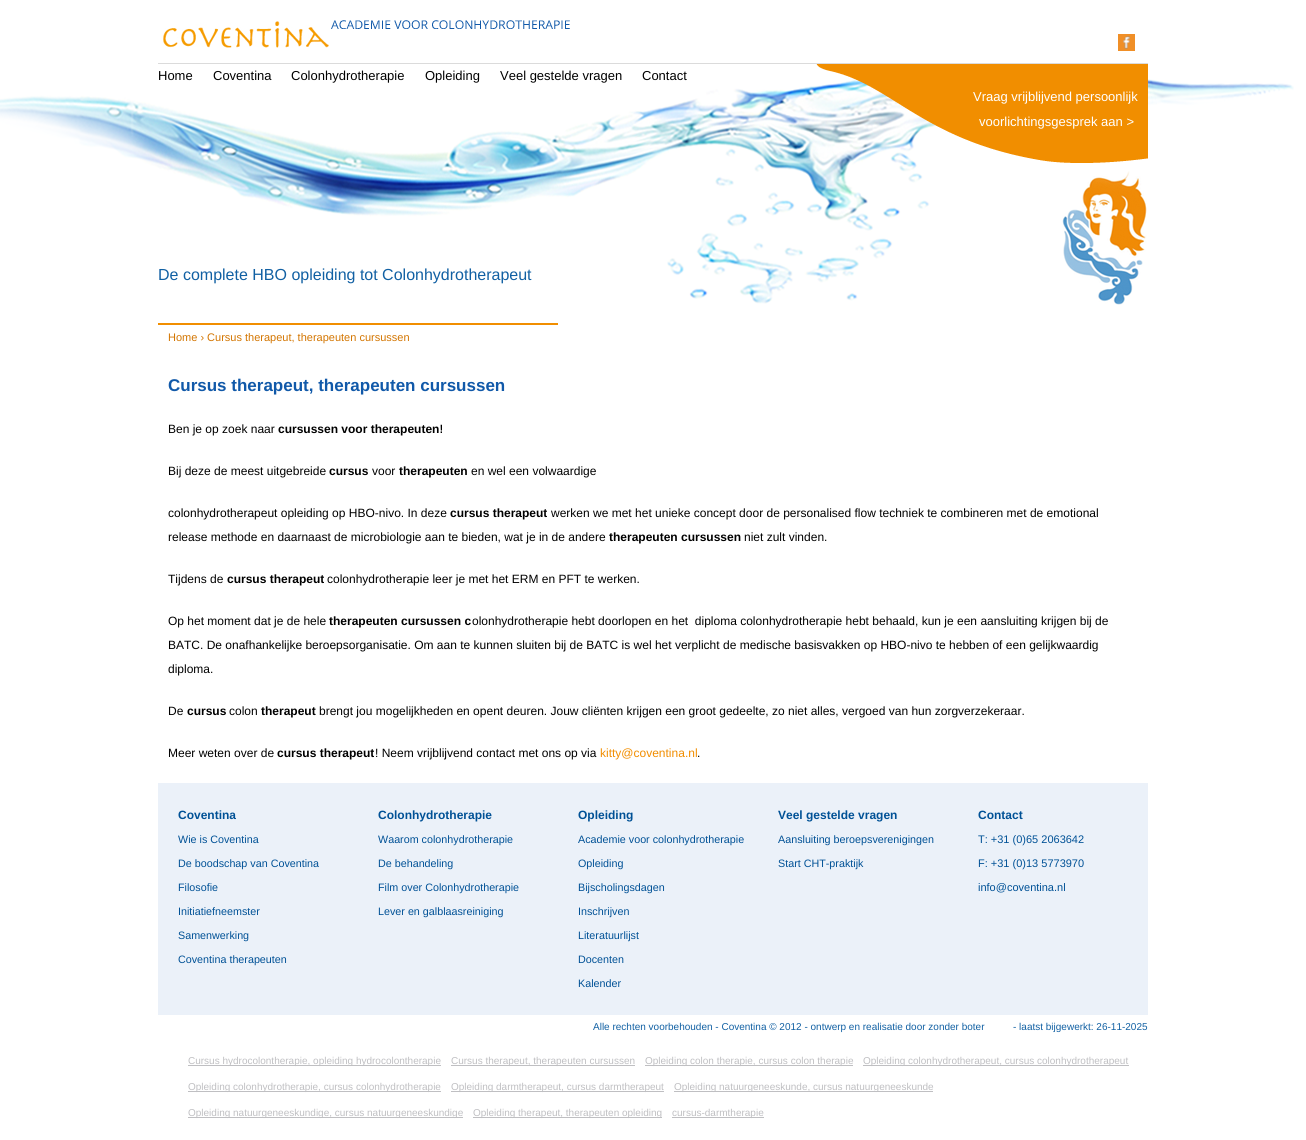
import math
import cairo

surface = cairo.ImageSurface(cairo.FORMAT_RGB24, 1306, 1140)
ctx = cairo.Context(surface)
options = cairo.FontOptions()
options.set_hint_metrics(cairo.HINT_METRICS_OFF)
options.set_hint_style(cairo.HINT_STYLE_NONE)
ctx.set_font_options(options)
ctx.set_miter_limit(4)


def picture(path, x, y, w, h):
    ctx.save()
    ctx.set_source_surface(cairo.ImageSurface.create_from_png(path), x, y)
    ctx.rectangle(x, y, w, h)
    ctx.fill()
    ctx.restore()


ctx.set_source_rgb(1, 1, 1)
ctx.paint()
picture("img1.png", 163, 20, 407, 28)
picture("img2.png", 0, 68, 1294, 237)
picture("img3.png", 1118, 34, 17, 17)
ctx.set_source_rgb(0.859, 0.859, 0.859)
ctx.rectangle(158, 63, 990, 1)
ctx.fill()
ctx.select_font_face("Liberation Sans")
ctx.set_font_size(13)
ctx.set_source_rgb(0, 0, 0)
ctx.move_to(158, 80)
ctx.show_text("Home")
ctx.move_to(213, 80)
ctx.show_text("Coventina")
ctx.move_to(291, 80)
ctx.show_text("Colonhydrotherapie")
ctx.move_to(425, 80)
ctx.show_text("Opleiding")
ctx.move_to(500, 80)
ctx.show_text("Veel gestelde vragen")
ctx.move_to(642, 80)
ctx.show_text("Contact")
picture("img4.png", 816, 64, 332, 99)
ctx.set_source_rgb(1, 1, 1)
ctx.move_to(973, 101)
ctx.show_text("Vraag vrijblijvend persoonlijk")
ctx.move_to(979, 126)
ctx.show_text("voorlichtingsgesprek aan >")
ctx.set_source_rgb(0.945, 0.557, 0)
ctx.rectangle(158, 323, 400, 2)
ctx.fill()
ctx.set_font_size(16)
ctx.set_source_rgb(0.067, 0.376, 0.639)
ctx.move_to(158, 280)
ctx.show_text("De complete HBO opleiding tot Colonhydrotherapeut")
ctx.set_font_size(11)
ctx.set_source_rgb(0.827, 0.459, 0)
ctx.move_to(168, 341)
ctx.show_text("Home › Cursus therapeut, therapeuten cursussen")
ctx.select_font_face("Liberation Sans", cairo.FONT_SLANT_NORMAL, cairo.FONT_WEIGHT_BOLD)
ctx.set_font_size(17)
ctx.set_source_rgb(0.067, 0.349, 0.663)
ctx.move_to(168, 391)
ctx.show_text("Cursus therapeut, therapeuten cursussen")
ctx.select_font_face("Liberation Sans")
ctx.set_font_size(12)
ctx.set_source_rgb(0, 0, 0)
ctx.move_to(168, 433)
ctx.show_text("Ben je op zoek naar")
ctx.select_font_face("Liberation Sans", cairo.FONT_SLANT_NORMAL, cairo.FONT_WEIGHT_BOLD)
ctx.move_to(278, 433)
ctx.show_text("cursussen voor therapeuten!")
ctx.select_font_face("Liberation Sans")
ctx.move_to(168, 475)
ctx.show_text("Bij deze de meest uitgebreide")
ctx.select_font_face("Liberation Sans", cairo.FONT_SLANT_NORMAL, cairo.FONT_WEIGHT_BOLD)
ctx.move_to(329, 475)
ctx.show_text("cursus")
ctx.select_font_face("Liberation Sans")
ctx.move_to(372, 475)
ctx.show_text("voor")
ctx.select_font_face("Liberation Sans", cairo.FONT_SLANT_NORMAL, cairo.FONT_WEIGHT_BOLD)
ctx.move_to(399, 475)
ctx.show_text("therapeuten")
ctx.select_font_face("Liberation Sans")
ctx.move_to(471, 475)
ctx.show_text("en wel een volwaardige")
ctx.move_to(168, 517)
ctx.show_text("colonhydrotherapeut opleiding op HBO-nivo. In deze")
ctx.select_font_face("Liberation Sans", cairo.FONT_SLANT_NORMAL, cairo.FONT_WEIGHT_BOLD)
ctx.move_to(450, 517)
ctx.show_text("cursus therapeut")
ctx.select_font_face("Liberation Sans")
ctx.move_to(551, 517)
ctx.show_text("werken we met het unieke concept door de personalised flow techniek te combineren met de emotional")
ctx.move_to(168, 541)
ctx.show_text("release methode en daarnaast de microbiologie aan te bieden, wat je in de andere")
ctx.select_font_face("Liberation Sans", cairo.FONT_SLANT_NORMAL, cairo.FONT_WEIGHT_BOLD)
ctx.move_to(609, 541)
ctx.show_text("therapeuten cursussen")
ctx.select_font_face("Liberation Sans")
ctx.move_to(744, 541)
ctx.show_text("niet zult vinden.")
ctx.move_to(168, 583)
ctx.show_text("Tijdens de")
ctx.select_font_face("Liberation Sans", cairo.FONT_SLANT_NORMAL, cairo.FONT_WEIGHT_BOLD)
ctx.move_to(227, 583)
ctx.show_text("cursus therapeut")
ctx.select_font_face("Liberation Sans")
ctx.move_to(327, 583)
ctx.show_text("colonhydrotherapie leer je met het ERM en PFT te werken.")
ctx.move_to(168, 625)
ctx.show_text("Op het moment dat je de hele")
ctx.select_font_face("Liberation Sans", cairo.FONT_SLANT_NORMAL, cairo.FONT_WEIGHT_BOLD)
ctx.move_to(329, 625)
ctx.show_text("therapeuten cursussen c")
ctx.select_font_face("Liberation Sans")
ctx.move_to(472, 625)
ctx.show_text("olonhydrotherapie hebt doorlopen en het  diploma colonhydrotherapie hebt behaald, kun je een aansluiting krijgen bij de")
ctx.move_to(168, 649)
ctx.show_text("BATC. De onafhankelijke beroepsorganisatie. Om aan te kunnen sluiten bij de BATC is wel het verplicht de medische basisvakken op HBO-nivo te hebben of een gelijkwaardig")
ctx.move_to(168, 673)
ctx.show_text("diploma.")
ctx.move_to(168, 715)
ctx.show_text("De")
ctx.select_font_face("Liberation Sans", cairo.FONT_SLANT_NORMAL, cairo.FONT_WEIGHT_BOLD)
ctx.move_to(187, 715)
ctx.show_text("cursus")
ctx.select_font_face("Liberation Sans")
ctx.move_to(229, 715)
ctx.show_text("colon")
ctx.select_font_face("Liberation Sans", cairo.FONT_SLANT_NORMAL, cairo.FONT_WEIGHT_BOLD)
ctx.move_to(261, 715)
ctx.show_text("therapeut")
ctx.select_font_face("Liberation Sans")
ctx.move_to(319, 715)
ctx.show_text("brengt jou mogelijkheden en opent deuren. Jouw cliënten krijgen een groot gedeelte, zo niet alles, vergoed van hun zorgverzekeraar.")
ctx.move_to(168, 757)
ctx.show_text("Meer weten over de")
ctx.select_font_face("Liberation Sans", cairo.FONT_SLANT_NORMAL, cairo.FONT_WEIGHT_BOLD)
ctx.move_to(277, 757)
ctx.show_text("cursus therapeut")
ctx.select_font_face("Liberation Sans")
ctx.move_to(375, 757)
ctx.show_text("! Neem vrijblijvend contact met ons op via")
ctx.set_source_rgb(0.945, 0.553, 0)
ctx.move_to(600, 757)
ctx.show_text("kitty@coventina.nl")
ctx.set_source_rgb(0, 0, 0)
ctx.move_to(697, 757)
ctx.show_text(".")
ctx.set_source_rgb(0.918, 0.945, 0.973)
ctx.rectangle(158, 783, 990, 232)
ctx.fill()
ctx.select_font_face("Liberation Sans", cairo.FONT_SLANT_NORMAL, cairo.FONT_WEIGHT_BOLD)
ctx.set_source_rgb(0, 0.318, 0.588)
ctx.move_to(178, 819)
ctx.show_text("Coventina")
ctx.select_font_face("Liberation Sans")
ctx.set_font_size(10.75)
ctx.move_to(178, 843)
ctx.show_text("Wie is Coventina")
ctx.move_to(178, 867)
ctx.show_text("De boodschap van Coventina")
ctx.move_to(178, 891)
ctx.show_text("Filosofie")
ctx.move_to(178, 915)
ctx.show_text("Initiatiefneemster")
ctx.move_to(178, 939)
ctx.show_text("Samenwerking")
ctx.move_to(178, 963)
ctx.show_text("Coventina therapeuten")
ctx.select_font_face("Liberation Sans", cairo.FONT_SLANT_NORMAL, cairo.FONT_WEIGHT_BOLD)
ctx.set_font_size(12)
ctx.move_to(378, 819)
ctx.show_text("Colonhydrotherapie")
ctx.select_font_face("Liberation Sans")
ctx.set_font_size(10.75)
ctx.move_to(378, 843)
ctx.show_text("Waarom colonhydrotherapie")
ctx.move_to(378, 867)
ctx.show_text("De behandeling")
ctx.move_to(378, 891)
ctx.show_text("Film over Colonhydrotherapie")
ctx.move_to(378, 915)
ctx.show_text("Lever en galblaasreiniging")
ctx.select_font_face("Liberation Sans", cairo.FONT_SLANT_NORMAL, cairo.FONT_WEIGHT_BOLD)
ctx.set_font_size(12)
ctx.move_to(578, 819)
ctx.show_text("Opleiding")
ctx.select_font_face("Liberation Sans")
ctx.set_font_size(10.75)
ctx.move_to(578, 843)
ctx.show_text("Academie voor colonhydrotherapie")
ctx.move_to(578, 867)
ctx.show_text("Opleiding")
ctx.move_to(578, 891)
ctx.show_text("Bijscholingsdagen")
ctx.move_to(578, 915)
ctx.show_text("Inschrijven")
ctx.move_to(578, 939)
ctx.show_text("Literatuurlijst")
ctx.move_to(578, 963)
ctx.show_text("Docenten")
ctx.move_to(578, 987)
ctx.show_text("Kalender")
ctx.select_font_face("Liberation Sans", cairo.FONT_SLANT_NORMAL, cairo.FONT_WEIGHT_BOLD)
ctx.set_font_size(12)
ctx.move_to(778, 819)
ctx.show_text("Veel gestelde vragen")
ctx.select_font_face("Liberation Sans")
ctx.set_font_size(10.75)
ctx.move_to(778, 843)
ctx.show_text("Aansluiting beroepsverenigingen")
ctx.move_to(778, 867)
ctx.show_text("Start CHT-praktijk")
ctx.select_font_face("Liberation Sans", cairo.FONT_SLANT_NORMAL, cairo.FONT_WEIGHT_BOLD)
ctx.set_font_size(12)
ctx.move_to(978, 819)
ctx.show_text("Contact")
ctx.select_font_face("Liberation Sans")
ctx.set_font_size(11)
ctx.move_to(978, 843)
ctx.show_text("T: +31 (0)65 2063642")
ctx.move_to(978, 867)
ctx.show_text("F: +31 (0)13 5773970")
ctx.move_to(978, 891)
ctx.show_text("info@coventina.nl")
ctx.set_source_rgb(0.749, 0.749, 0.761)
ctx.rectangle(188, 1065, 253, 1)
ctx.fill()
ctx.set_font_size(10)
ctx.move_to(188, 1064)
ctx.show_text("Cursus hydrocolontherapie, opleiding hydrocolontherapie")
ctx.rectangle(451, 1065, 184, 1)
ctx.fill()
ctx.move_to(451, 1064)
ctx.show_text("Cursus therapeut, therapeuten cursussen")
ctx.rectangle(645, 1065, 208, 1)
ctx.fill()
ctx.move_to(645, 1064)
ctx.show_text("Opleiding colon therapie, cursus colon therapie")
ctx.rectangle(863, 1065, 266, 1)
ctx.fill()
ctx.move_to(863, 1064)
ctx.show_text("Opleiding colonhydrotherapeut, cursus colonhydrotherapeut")
ctx.rectangle(188, 1091, 253, 1)
ctx.fill()
ctx.move_to(188, 1090)
ctx.show_text("Opleiding colonhydrotherapie, cursus colonhydrotherapie")
ctx.rectangle(451, 1091, 213, 1)
ctx.fill()
ctx.move_to(451, 1090)
ctx.show_text("Opleiding darmtherapeut, cursus darmtherapeut")
ctx.rectangle(674, 1091, 259, 1)
ctx.fill()
ctx.move_to(674, 1090)
ctx.show_text("Opleiding natuurgeneeskunde, cursus natuurgeneeskunde")
ctx.rectangle(188, 1117, 275, 1)
ctx.fill()
ctx.move_to(188, 1116)
ctx.show_text("Opleiding natuurgeneeskundige, cursus natuurgeneeskundige")
ctx.rectangle(473, 1117, 189, 1)
ctx.fill()
ctx.move_to(473, 1116)
ctx.show_text("Opleiding therapeut, therapeuten opleiding")
ctx.rectangle(672, 1117, 92, 1)
ctx.fill()
ctx.move_to(672, 1116)
ctx.show_text("cursus-darmtherapie")
ctx.set_source_rgb(0.067, 0.376, 0.639)
ctx.move_to(593, 1030)
ctx.show_text("Alle rechten voorbehouden - Coventina © 2012 - ontwerp en realisatie door zonder boter")
ctx.move_to(1013, 1030)
ctx.show_text("- laatst bijgewerkt: 26-11-2025")
surface.write_to_png("page.png")
